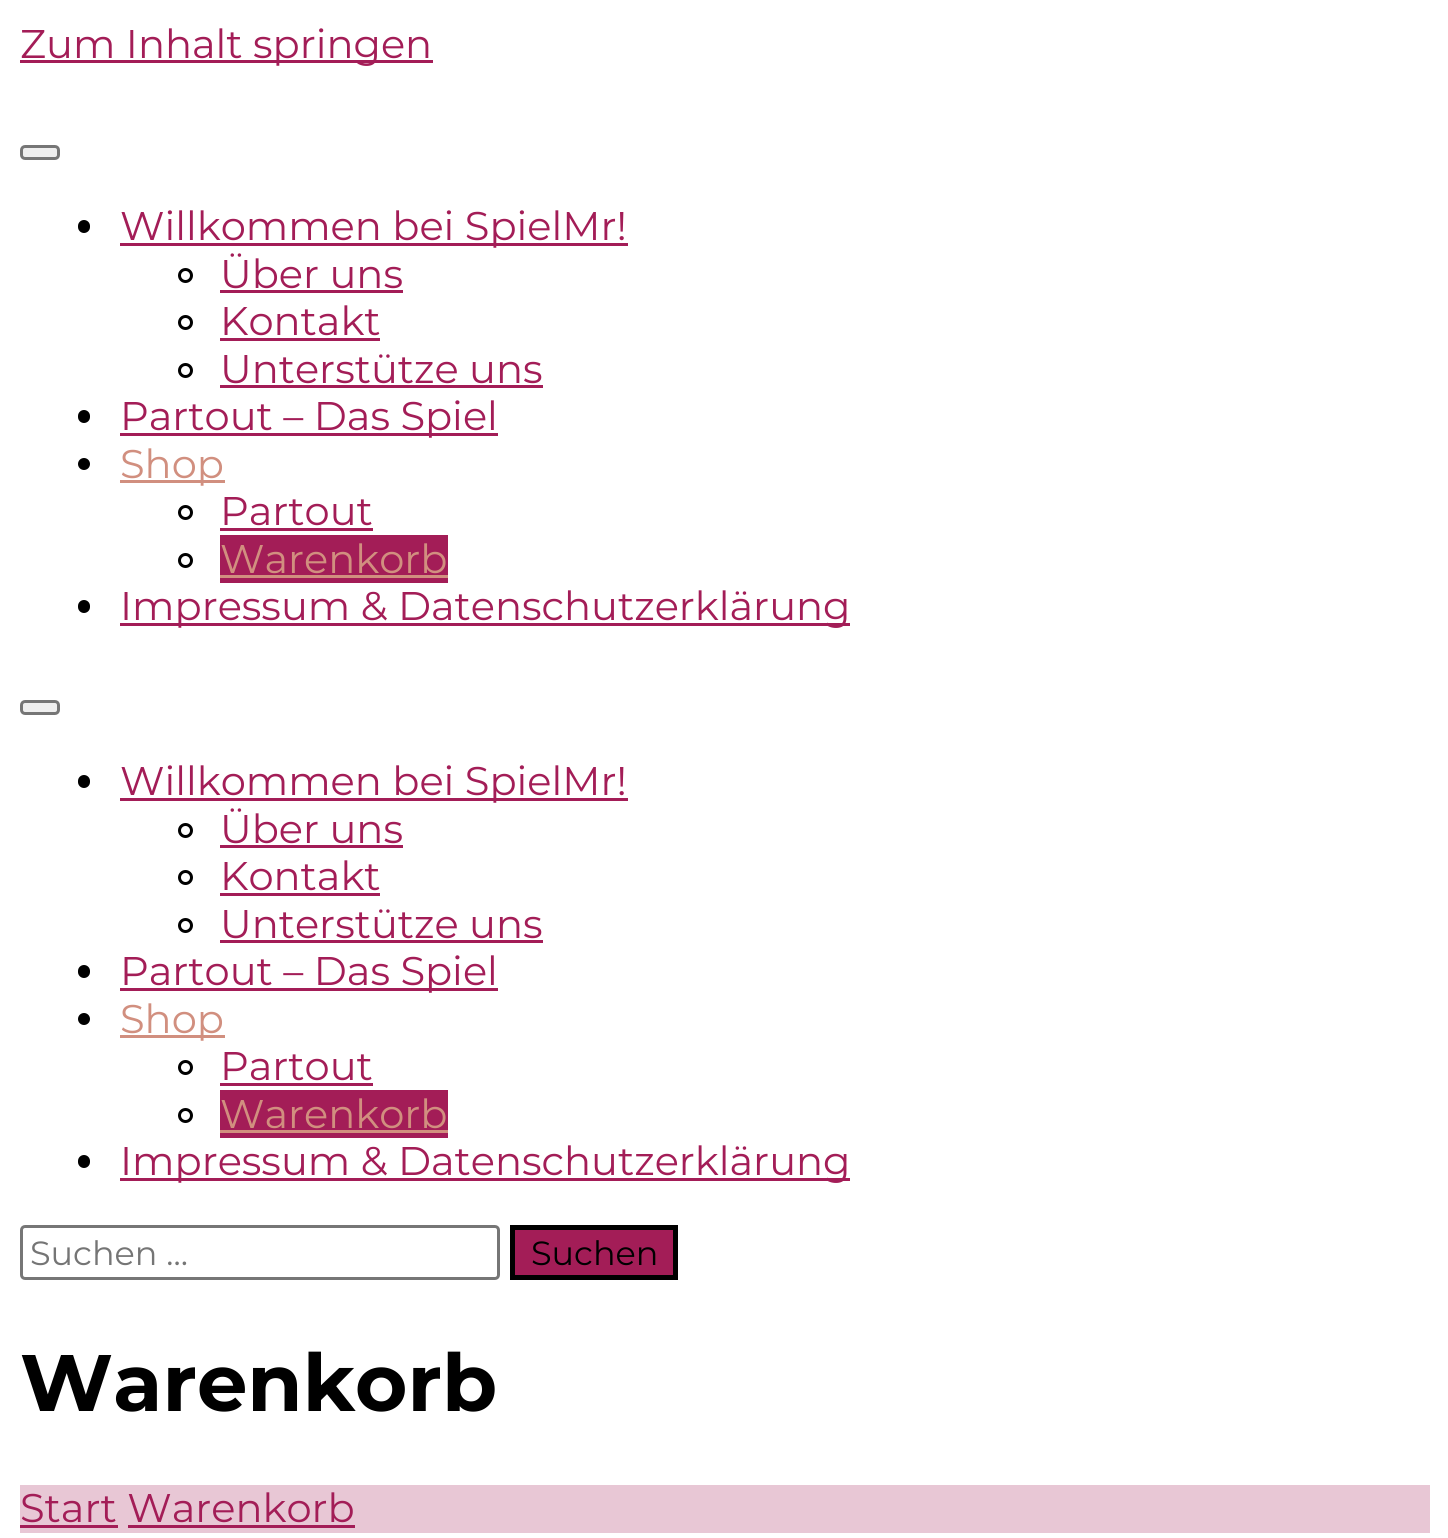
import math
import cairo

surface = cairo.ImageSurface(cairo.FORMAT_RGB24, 1448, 1538)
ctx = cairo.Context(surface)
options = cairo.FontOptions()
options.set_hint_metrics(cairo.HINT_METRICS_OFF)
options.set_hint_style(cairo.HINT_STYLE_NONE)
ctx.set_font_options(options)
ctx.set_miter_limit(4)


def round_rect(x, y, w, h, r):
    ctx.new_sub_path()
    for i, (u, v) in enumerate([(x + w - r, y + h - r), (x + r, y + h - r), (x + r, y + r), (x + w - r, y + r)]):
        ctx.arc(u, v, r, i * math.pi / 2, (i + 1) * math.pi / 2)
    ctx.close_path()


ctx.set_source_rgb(1, 1, 1)
ctx.paint()
ctx.set_source_rgb(0.639, 0.114, 0.341)
ctx.rectangle(20, 60, 413, 3)
ctx.fill()
ctx.select_font_face("Montserrat")
ctx.set_font_size(40)
ctx.move_to(20, 58)
ctx.show_text("Zum Inhalt springen")
ctx.set_source_rgb(0.937, 0.937, 0.937)
round_rect(21.5, 146.5, 37, 12, 3.5)
ctx.fill_preserve()
ctx.set_source_rgb(0.463, 0.463, 0.463)
ctx.set_line_width(3)
ctx.stroke()
ctx.set_source_rgb(0, 0, 0)
round_rect(78, 220, 12, 13, 6)
ctx.fill()
ctx.set_source_rgb(0.639, 0.114, 0.341)
ctx.rectangle(120, 243, 508, 3)
ctx.fill()
ctx.move_to(120, 240)
ctx.show_text("Willkommen bei SpielMr!")
ctx.new_path()
ctx.arc(185.5, 275.5, 6, 0, 2 * math.pi)
ctx.set_source_rgb(0, 0, 0)
ctx.stroke()
ctx.set_source_rgb(0.639, 0.114, 0.341)
ctx.move_to(220, 288)
ctx.show_text("Über uns")
ctx.rectangle(220, 290, 183, 3)
ctx.fill()
ctx.arc(185.5, 322.5, 6, 0, 2 * math.pi)
ctx.set_source_rgb(0, 0, 0)
ctx.stroke()
ctx.set_source_rgb(0.639, 0.114, 0.341)
ctx.move_to(220, 335)
ctx.show_text("Kontakt")
ctx.rectangle(220, 338, 160, 3)
ctx.fill()
ctx.arc(185.5, 370.5, 6, 0, 2 * math.pi)
ctx.set_source_rgb(0, 0, 0)
ctx.stroke()
ctx.set_source_rgb(0.639, 0.114, 0.341)
ctx.move_to(220, 383)
ctx.show_text("Unterstütze uns")
ctx.rectangle(220, 385, 323, 3)
ctx.fill()
ctx.set_source_rgb(0, 0, 0)
round_rect(78, 410, 12, 13, 6)
ctx.fill()
ctx.set_source_rgb(0.639, 0.114, 0.341)
ctx.rectangle(120, 433, 378, 3)
ctx.fill()
ctx.move_to(120, 430)
ctx.show_text("Partout – Das Spiel")
ctx.set_source_rgb(0, 0, 0)
ctx.new_path()
ctx.arc(84, 464, 6, 0, 2 * math.pi)
ctx.fill()
ctx.set_source_rgb(0.82, 0.561, 0.498)
ctx.rectangle(120, 480, 105, 3)
ctx.fill()
ctx.move_to(120, 478)
ctx.show_text("Shop")
ctx.new_path()
ctx.arc(185.5, 512.5, 6, 0, 2 * math.pi)
ctx.set_source_rgb(0, 0, 0)
ctx.stroke()
ctx.set_source_rgb(0.639, 0.114, 0.341)
ctx.move_to(220, 525)
ctx.show_text("Partout")
ctx.rectangle(220, 528, 153, 3)
ctx.fill()
ctx.arc(185.5, 560.5, 6, 0, 2 * math.pi)
ctx.set_source_rgb(0, 0, 0)
ctx.stroke()
ctx.set_source_rgb(0.639, 0.114, 0.341)
ctx.rectangle(220, 535, 228, 48)
ctx.fill()
ctx.set_source_rgb(0.82, 0.561, 0.498)
ctx.move_to(220, 573)
ctx.show_text("Warenkorb")
ctx.rectangle(220, 575, 228, 3)
ctx.fill()
ctx.set_source_rgb(0, 0, 0)
round_rect(78, 600, 12, 13, 6)
ctx.fill()
ctx.set_source_rgb(0.639, 0.114, 0.341)
ctx.rectangle(120, 623, 730, 3)
ctx.fill()
ctx.move_to(120, 620)
ctx.show_text("Impressum & Datenschutzerklärung")
ctx.set_source_rgb(0.937, 0.937, 0.937)
round_rect(21.5, 701.5, 37, 12, 3.5)
ctx.fill_preserve()
ctx.set_source_rgb(0.463, 0.463, 0.463)
ctx.stroke()
ctx.set_source_rgb(0, 0, 0)
round_rect(78, 775, 12, 13, 6)
ctx.fill()
ctx.set_source_rgb(0.639, 0.114, 0.341)
ctx.rectangle(120, 798, 508, 3)
ctx.fill()
ctx.move_to(120, 795)
ctx.show_text("Willkommen bei SpielMr!")
ctx.new_path()
ctx.arc(185.5, 830.5, 6, 0, 2 * math.pi)
ctx.set_source_rgb(0, 0, 0)
ctx.stroke()
ctx.set_source_rgb(0.639, 0.114, 0.341)
ctx.move_to(220, 843)
ctx.show_text("Über uns")
ctx.rectangle(220, 845, 183, 3)
ctx.fill()
ctx.arc(185.5, 877.5, 6, 0, 2 * math.pi)
ctx.set_source_rgb(0, 0, 0)
ctx.stroke()
ctx.set_source_rgb(0.639, 0.114, 0.341)
ctx.move_to(220, 890)
ctx.show_text("Kontakt")
ctx.rectangle(220, 893, 160, 3)
ctx.fill()
ctx.arc(185.5, 925.5, 6, 0, 2 * math.pi)
ctx.set_source_rgb(0, 0, 0)
ctx.stroke()
ctx.set_source_rgb(0.639, 0.114, 0.341)
ctx.move_to(220, 938)
ctx.show_text("Unterstütze uns")
ctx.rectangle(220, 940, 323, 3)
ctx.fill()
ctx.set_source_rgb(0, 0, 0)
round_rect(78, 965, 12, 13, 6)
ctx.fill()
ctx.set_source_rgb(0.639, 0.114, 0.341)
ctx.rectangle(120, 988, 378, 3)
ctx.fill()
ctx.move_to(120, 985)
ctx.show_text("Partout – Das Spiel")
ctx.set_source_rgb(0, 0, 0)
ctx.new_path()
ctx.arc(84, 1019, 6, 0, 2 * math.pi)
ctx.fill()
ctx.set_source_rgb(0.82, 0.561, 0.498)
ctx.rectangle(120, 1035, 105, 3)
ctx.fill()
ctx.move_to(120, 1033)
ctx.show_text("Shop")
ctx.new_path()
ctx.arc(185.5, 1067.5, 6, 0, 2 * math.pi)
ctx.set_source_rgb(0, 0, 0)
ctx.stroke()
ctx.set_source_rgb(0.639, 0.114, 0.341)
ctx.move_to(220, 1080)
ctx.show_text("Partout")
ctx.rectangle(220, 1083, 153, 3)
ctx.fill()
ctx.arc(185.5, 1115.5, 6, 0, 2 * math.pi)
ctx.set_source_rgb(0, 0, 0)
ctx.stroke()
ctx.set_source_rgb(0.639, 0.114, 0.341)
ctx.rectangle(220, 1090, 228, 48)
ctx.fill()
ctx.set_source_rgb(0.82, 0.561, 0.498)
ctx.move_to(220, 1128)
ctx.show_text("Warenkorb")
ctx.rectangle(220, 1130, 228, 3)
ctx.fill()
ctx.set_source_rgb(0, 0, 0)
round_rect(78, 1155, 12, 13, 6)
ctx.fill()
ctx.set_source_rgb(0.639, 0.114, 0.341)
ctx.rectangle(120, 1178, 730, 3)
ctx.fill()
ctx.move_to(120, 1175)
ctx.show_text("Impressum & Datenschutzerklärung")
round_rect(21.5, 1226.5, 477, 52, 3.5)
ctx.set_source_rgb(0.463, 0.463, 0.463)
ctx.stroke()
ctx.set_font_size(33.5)
ctx.set_source_rgb(0.459, 0.459, 0.459)
ctx.move_to(30, 1265)
ctx.show_text("Suchen …")
ctx.set_source_rgb(0.639, 0.114, 0.341)
ctx.rectangle(512.5, 1227.5, 163, 50)
ctx.fill_preserve()
ctx.set_source_rgb(0, 0, 0)
ctx.set_line_width(5)
ctx.stroke()
ctx.move_to(531, 1265)
ctx.show_text("Suchen")
ctx.select_font_face("Montserrat", cairo.FONT_SLANT_NORMAL, cairo.FONT_WEIGHT_BOLD)
ctx.set_font_size(80)
ctx.move_to(20, 1411)
ctx.show_text("Warenkorb")
ctx.set_source_rgb(0.91, 0.78, 0.835)
ctx.rectangle(20, 1485, 1410, 48)
ctx.fill()
ctx.select_font_face("Montserrat")
ctx.set_font_size(40)
ctx.set_source_rgb(0.639, 0.114, 0.341)
ctx.move_to(20, 1522)
ctx.show_text("Start Warenkorb")
ctx.rectangle(20, 1525, 98, 3)
ctx.fill()
ctx.rectangle(128, 1525, 227, 3)
ctx.fill()
surface.write_to_png("page.png")
